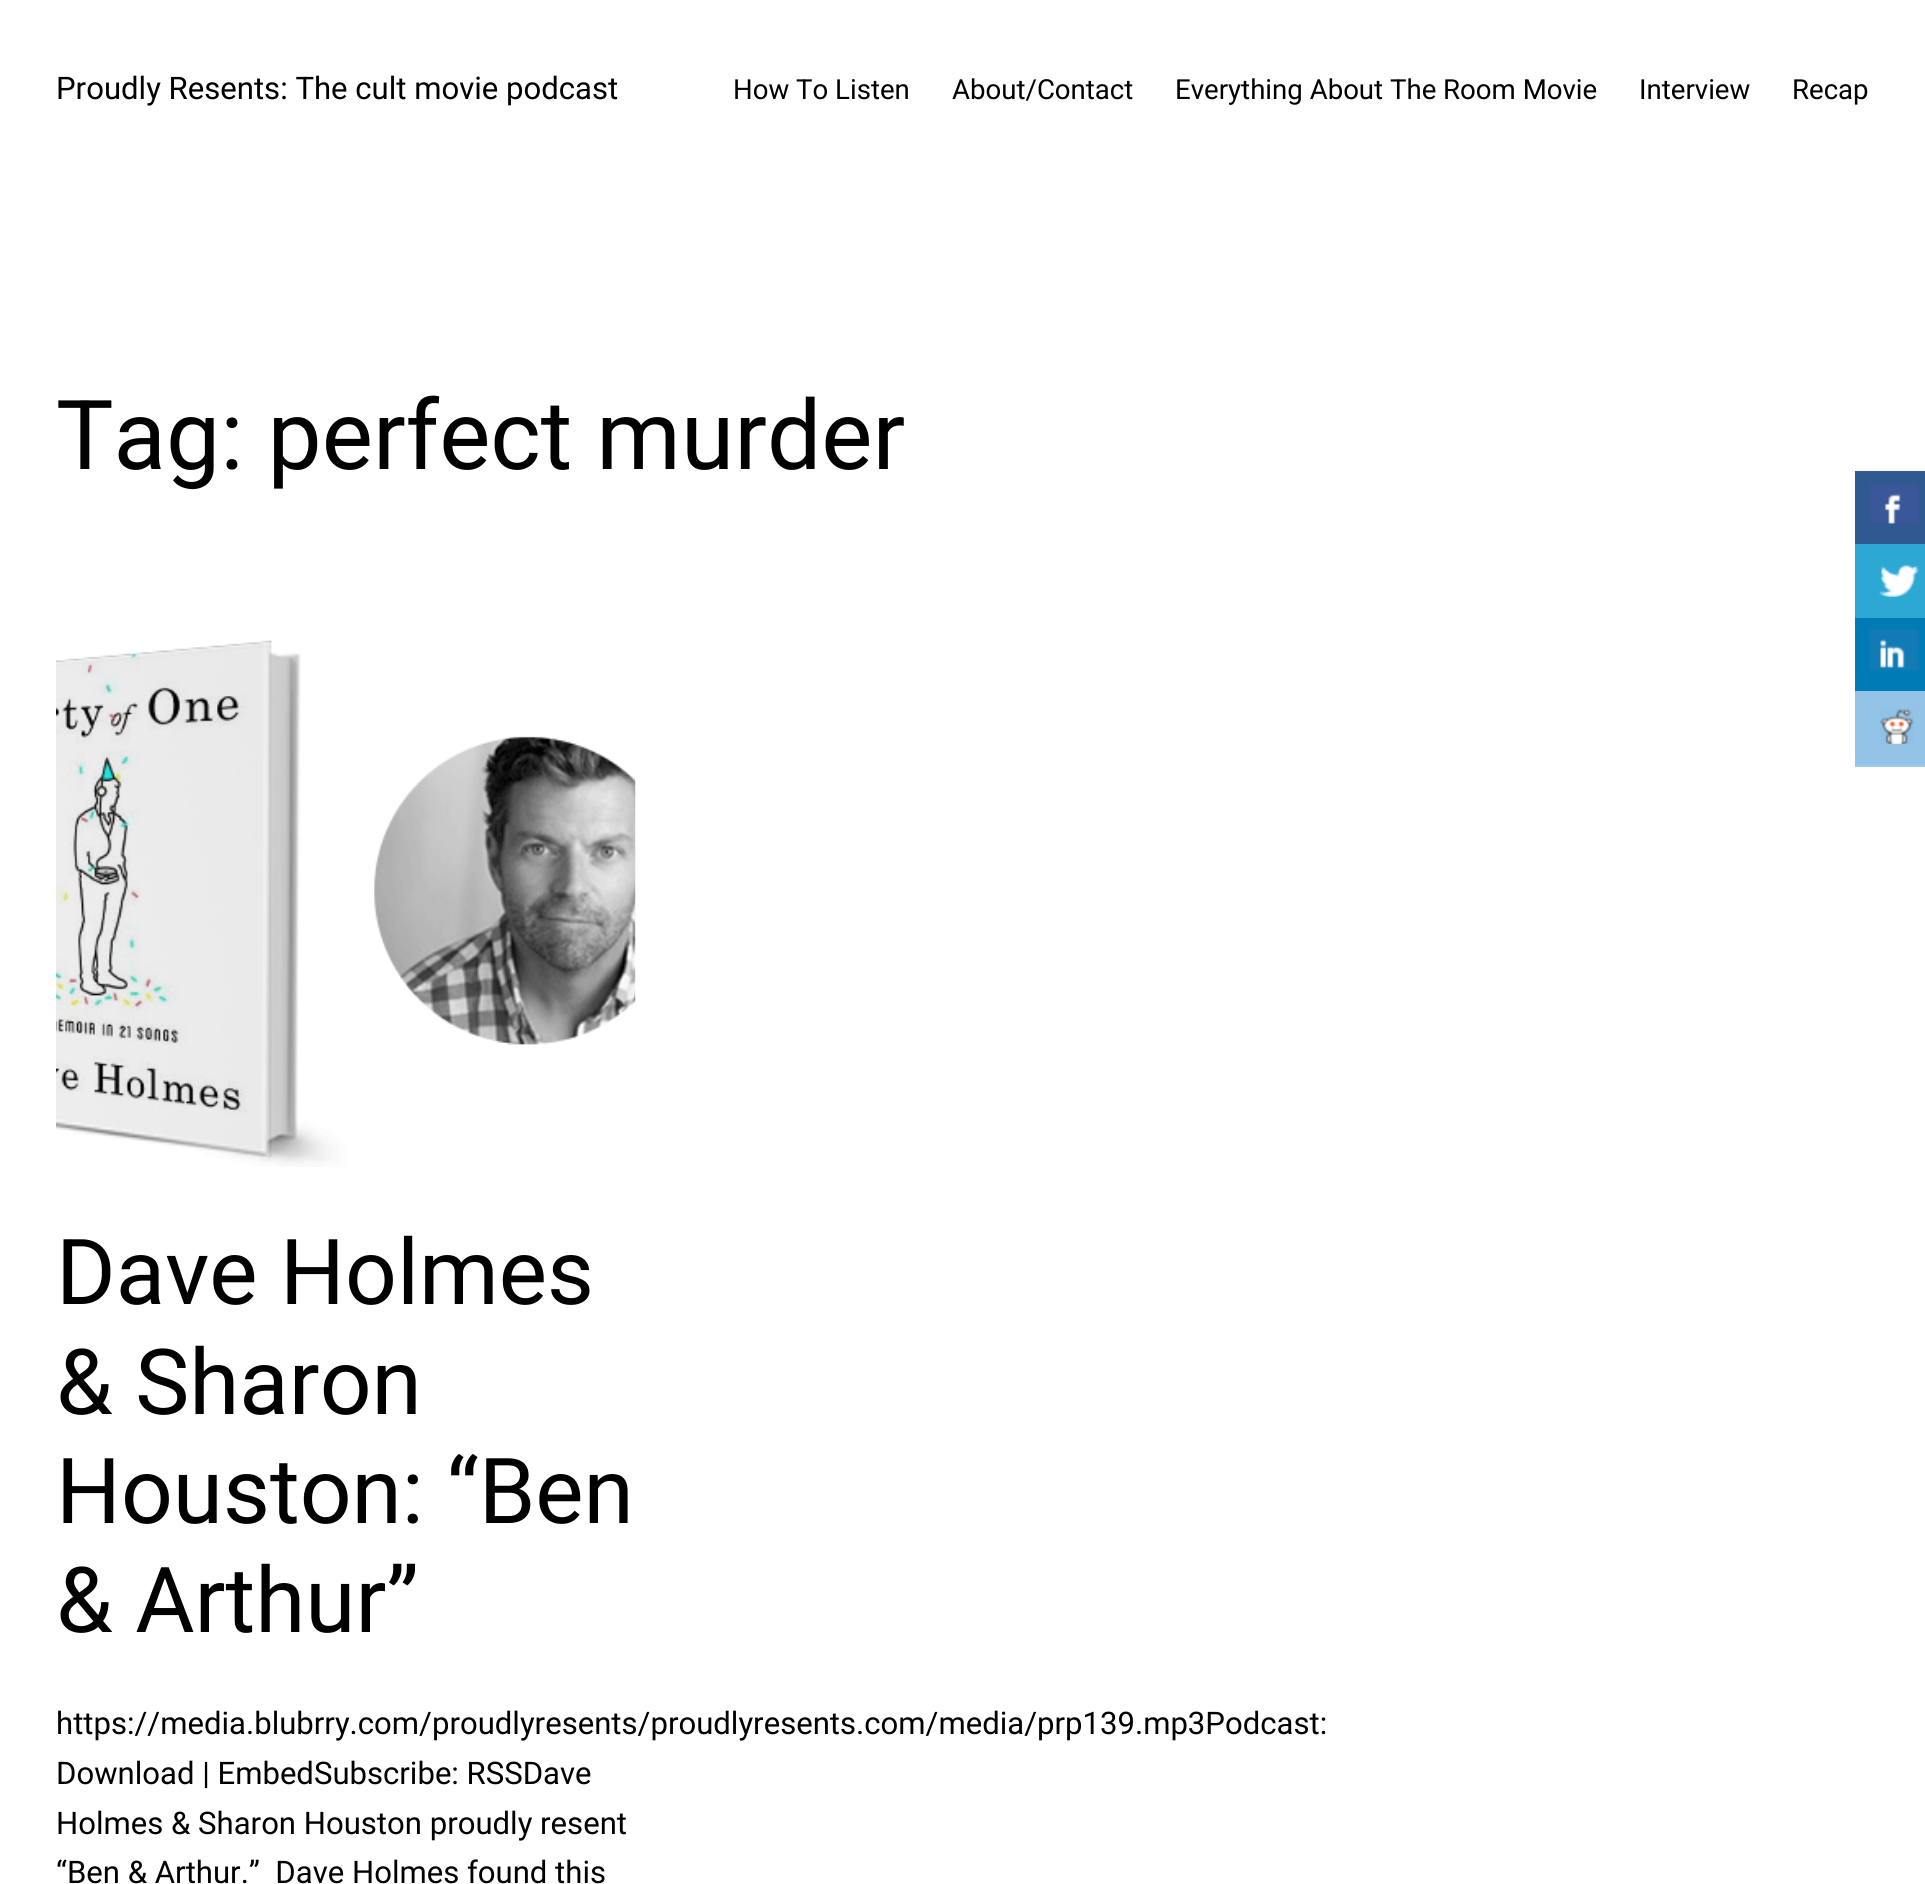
import math
import cairo

surface = cairo.ImageSurface(cairo.FORMAT_RGB24, 1925, 1884)
ctx = cairo.Context(surface)
options = cairo.FontOptions()
options.set_hint_metrics(cairo.HINT_METRICS_OFF)
options.set_hint_style(cairo.HINT_STYLE_NONE)
ctx.set_font_options(options)
ctx.set_miter_limit(4)


def picture(path, x, y, w, h):
    ctx.save()
    ctx.set_source_surface(cairo.ImageSurface.create_from_png(path), x, y)
    ctx.rectangle(x, y, w, h)
    ctx.fill()
    ctx.restore()


ctx.set_source_rgb(1, 1, 1)
ctx.paint()
ctx.select_font_face("Roboto")
ctx.set_font_size(31.1)
ctx.set_source_rgb(0, 0, 0)
ctx.move_to(56, 99)
ctx.show_text("Proudly Resents: The cult movie podcast")
ctx.set_font_size(27.6)
ctx.move_to(733, 99)
ctx.show_text("How To Listen")
ctx.move_to(952, 99)
ctx.show_text("About/Contact")
ctx.move_to(1175, 99)
ctx.show_text("Everything About The Room Movie")
ctx.move_to(1639, 99)
ctx.show_text("Interview")
ctx.move_to(1792, 99)
ctx.show_text("Recap")
ctx.set_font_size(96.5)
ctx.move_to(56, 469)
ctx.show_text("Tag: perfect murder")
picture("img1.png", 56, 640, 580, 527)
ctx.set_font_size(91)
ctx.move_to(56, 1304)
ctx.show_text("Dave Holmes")
ctx.move_to(56, 1414)
ctx.show_text("& Sharon")
ctx.move_to(56, 1523)
ctx.show_text("Houston: “Ben")
ctx.move_to(56, 1632)
ctx.show_text("& Arthur”")
ctx.set_font_size(31.1)
ctx.move_to(56, 1734)
ctx.show_text("https://media.blubrry.com/proudlyresents/proudlyresents.com/media/prp139.mp3Podcast:")
ctx.move_to(56, 1784)
ctx.show_text("Download | EmbedSubscribe: RSSDave")
ctx.move_to(56, 1834)
ctx.show_text("Holmes & Sharon Houston proudly resent")
ctx.move_to(56, 1883)
ctx.show_text("“Ben & Arthur.”  Dave Holmes found this")
ctx.set_source_rgb(0.188, 0.345, 0.569)
ctx.rectangle(1855, 471, 70, 73)
ctx.fill()
picture("img2.png", 1870, 483, 49, 41)
ctx.set_source_rgb(0.173, 0.659, 0.824)
ctx.rectangle(1855, 544, 70, 74)
ctx.fill()
picture("img3.png", 1879, 564, 41, 33)
ctx.set_source_rgb(0, 0.482, 0.714)
ctx.rectangle(1855, 618, 70, 73)
ctx.fill()
picture("img4.png", 1869, 628, 50, 43)
ctx.set_source_rgb(0.576, 0.765, 0.902)
ctx.rectangle(1855, 691, 70, 74)
ctx.fill()
ctx.set_source_rgb(0.62, 0.788, 0.914)
ctx.rectangle(1855, 765, 70, 2)
ctx.fill()
picture("img5.png", 1880, 708, 34, 36)
surface.write_to_png("page.png")
